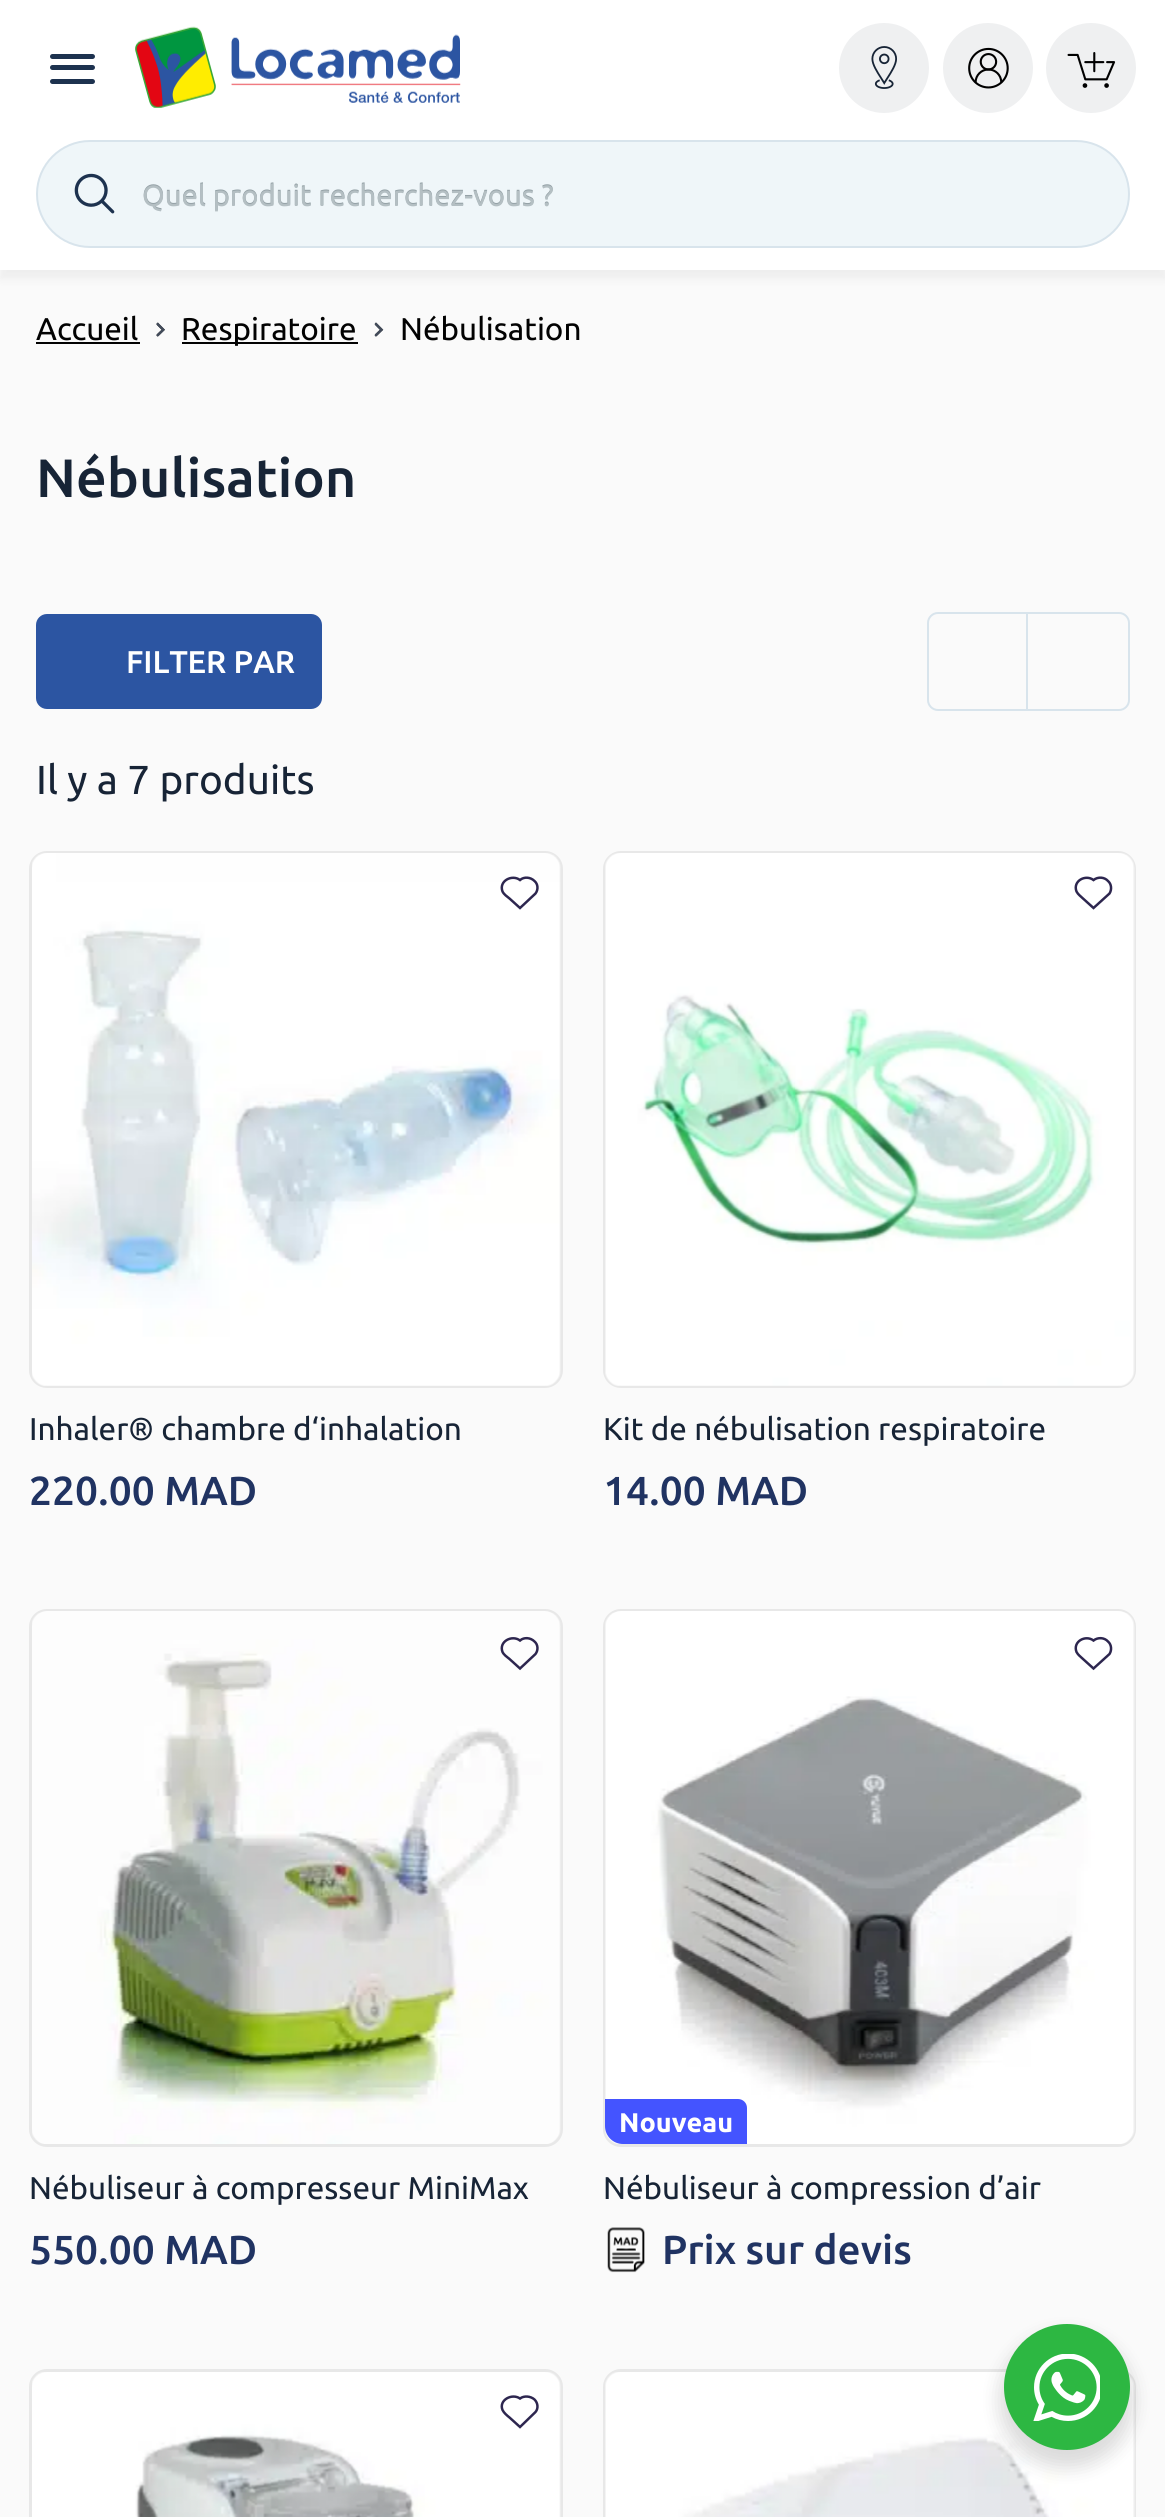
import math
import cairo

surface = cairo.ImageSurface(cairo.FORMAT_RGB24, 1165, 2517)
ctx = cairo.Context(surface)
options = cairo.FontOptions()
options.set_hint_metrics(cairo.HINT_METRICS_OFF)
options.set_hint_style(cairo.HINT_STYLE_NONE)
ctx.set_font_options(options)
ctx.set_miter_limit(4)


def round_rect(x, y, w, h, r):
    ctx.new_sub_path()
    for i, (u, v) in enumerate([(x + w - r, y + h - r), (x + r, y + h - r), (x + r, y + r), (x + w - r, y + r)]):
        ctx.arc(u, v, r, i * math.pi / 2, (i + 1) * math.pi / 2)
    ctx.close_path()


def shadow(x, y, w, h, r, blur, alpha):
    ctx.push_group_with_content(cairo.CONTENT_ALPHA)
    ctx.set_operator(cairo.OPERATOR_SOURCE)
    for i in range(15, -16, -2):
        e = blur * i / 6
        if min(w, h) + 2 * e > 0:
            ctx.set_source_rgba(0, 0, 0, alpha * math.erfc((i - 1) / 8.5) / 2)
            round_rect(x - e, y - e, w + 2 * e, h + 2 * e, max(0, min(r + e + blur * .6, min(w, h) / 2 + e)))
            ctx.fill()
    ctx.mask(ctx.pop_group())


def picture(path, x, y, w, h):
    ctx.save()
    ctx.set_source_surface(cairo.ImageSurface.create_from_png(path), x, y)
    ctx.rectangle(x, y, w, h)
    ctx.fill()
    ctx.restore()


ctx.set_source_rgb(0.98, 0.98, 0.98)
ctx.paint()
ctx.set_source_rgb(0, 0, 0)
shadow(0, 9, 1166, 270, 0, 4.5, 0.05)
ctx.set_source_rgb(1, 1, 1)
ctx.rectangle(0, 0, 1165, 270)
ctx.fill()
ctx.set_source_rgb(0.114, 0.196, 0.31)
round_rect(50, 54, 45, 5, 2.5)
ctx.fill()
round_rect(50, 65, 45, 5, 2.5)
ctx.fill()
round_rect(50, 79, 45, 5, 2.5)
ctx.fill()
picture("img1.png", 135, 26, 326, 82)
ctx.set_source_rgb(0.937, 0.941, 0.945)
ctx.arc(884, 68, 45, 0, 2 * math.pi)
ctx.fill()
picture("img2.png", 871, 46, 26, 43)
ctx.arc(988, 68, 45, 0, 2 * math.pi)
ctx.fill()
picture("img3.png", 968, 47, 41, 42)
ctx.arc(1091, 68, 45, 0, 2 * math.pi)
ctx.fill()
picture("img4.png", 1067, 52, 49, 36)
ctx.set_source_rgb(0.937, 0.961, 0.973)
round_rect(37, 141, 1092, 106, 53)
ctx.fill_preserve()
ctx.set_source_rgb(0.847, 0.894, 0.922)
ctx.stroke()
picture("img5.png", 74, 173, 41, 41)
ctx.select_font_face("Ubuntu")
ctx.set_font_size(29.25)
ctx.set_source_rgb(0.58, 0.631, 0.651)
ctx.move_to(142, 205)
ctx.show_text("Quel produit recherchez-vous ?")
ctx.set_source_rgb(0.706, 0.749, 0.765)
ctx.move_to(142, 206)
ctx.show_text("Quel produit recherchez-vous ?")
ctx.set_font_size(31.5)
ctx.set_source_rgb(0.008, 0.008, 0.008)
ctx.move_to(36, 340)
ctx.show_text("Accueil")
ctx.rectangle(36, 342, 104, 2)
ctx.fill()
picture("img6.png", 156, 322, 9, 15)
ctx.rectangle(182, 342, 176, 2)
ctx.fill()
ctx.move_to(181, 340)
ctx.show_text("Respiratoire")
picture("img7.png", 374, 322, 10, 15)
ctx.move_to(400, 340)
ctx.show_text("Nébulisation")
ctx.select_font_face("Ubuntu Medium")
ctx.set_font_size(54)
ctx.set_source_rgb(0.09, 0.141, 0.212)
ctx.move_to(36, 497)
ctx.show_text("Nébulisation")
ctx.set_source_rgb(0.173, 0.333, 0.635)
round_rect(36, 614, 286, 95, 11)
ctx.fill()
ctx.set_font_size(31.5)
ctx.set_source_rgb(1, 1, 1)
ctx.move_to(126, 673)
ctx.show_text("FILTER PAR")
round_rect(928, 613, 201, 97, 10)
ctx.set_source_rgb(0.847, 0.894, 0.922)
ctx.stroke()
ctx.rectangle(1026, 614, 2, 95)
ctx.fill()
ctx.select_font_face("Ubuntu")
ctx.set_font_size(40.5)
ctx.set_source_rgb(0.09, 0.141, 0.212)
ctx.move_to(36, 794)
ctx.show_text("Il y a 7 produits")
ctx.set_source_rgb(0.91, 0.91, 0.91)
round_rect(29, 851, 534, 537, 18)
ctx.fill()
picture("img8.png", 32, 853, 529, 533)
ctx.new_path()
ctx.move_to(534.5, 881)
ctx.curve_to(530.5, 877, 524, 876.5, 520, 880)
ctx.curve_to(512, 874, 498.5, 881, 502.5, 891.5)
ctx.curve_to(504, 894.5, 507, 896.5, 509.5, 898.5)
ctx.line_to(520, 908)
ctx.line_to(535.5, 893.5)
ctx.curve_to(538.5, 889.5, 538, 884, 534.5, 881)
ctx.close_path()
ctx.set_source_rgb(0.176, 0.149, 0.31)
ctx.set_line_width(2.5)
ctx.stroke()
ctx.set_font_size(31.5)
ctx.set_source_rgb(0.09, 0.141, 0.212)
ctx.move_to(29, 1440)
ctx.show_text("Inhaler® chambre d‘inhalation")
ctx.select_font_face("Ubuntu Medium")
ctx.set_font_size(40.5)
ctx.set_source_rgb(0.125, 0.2, 0.384)
ctx.move_to(29, 1505)
ctx.show_text("220.00 MAD")
ctx.set_source_rgb(0.91, 0.91, 0.91)
round_rect(603, 851, 533, 537, 18)
ctx.fill()
picture("img9.png", 605, 853, 530, 533)
ctx.new_path()
ctx.move_to(1108, 881)
ctx.curve_to(1104.5, 877, 1098, 876.5, 1093.5, 880)
ctx.curve_to(1085.5, 874, 1072.5, 881, 1076.5, 891.5)
ctx.curve_to(1078, 894.5, 1081, 896.5, 1083, 898.5)
ctx.line_to(1093.5, 908)
ctx.line_to(1109.5, 893.5)
ctx.curve_to(1112, 889.5, 1111.5, 884, 1108, 881)
ctx.close_path()
ctx.set_source_rgb(0.176, 0.149, 0.31)
ctx.stroke()
ctx.select_font_face("Ubuntu")
ctx.set_font_size(31.5)
ctx.set_source_rgb(0.09, 0.141, 0.212)
ctx.move_to(603, 1440)
ctx.show_text("Kit de nébulisation respiratoire")
ctx.select_font_face("Ubuntu Medium")
ctx.set_font_size(40.5)
ctx.set_source_rgb(0.125, 0.2, 0.384)
ctx.move_to(603, 1505)
ctx.show_text("14.00 MAD")
ctx.set_source_rgb(0.91, 0.91, 0.91)
round_rect(29, 1609, 534, 538, 18)
ctx.fill()
picture("img10.png", 32, 1611, 529, 533)
ctx.new_path()
ctx.move_to(534.5, 1641.5)
ctx.curve_to(530.5, 1637.5, 524, 1637, 520, 1640.5)
ctx.curve_to(512, 1634.5, 498.5, 1641.5, 502.5, 1652)
ctx.curve_to(504, 1655, 507, 1657, 509.5, 1659)
ctx.line_to(520, 1668.5)
ctx.line_to(535.5, 1654)
ctx.curve_to(538.5, 1650, 538, 1644.5, 534.5, 1641.5)
ctx.close_path()
ctx.set_source_rgb(0.176, 0.149, 0.31)
ctx.stroke()
ctx.select_font_face("Ubuntu")
ctx.set_font_size(31.5)
ctx.set_source_rgb(0.09, 0.141, 0.212)
ctx.move_to(29, 2199)
ctx.show_text("Nébuliseur à compresseur MiniMax")
ctx.select_font_face("Ubuntu Medium")
ctx.set_font_size(40.5)
ctx.set_source_rgb(0.125, 0.2, 0.384)
ctx.move_to(29, 2264)
ctx.show_text("550.00 MAD")
ctx.set_source_rgb(0.91, 0.91, 0.91)
round_rect(603, 1609, 533, 538, 18)
ctx.fill()
picture("img11.png", 605, 1611, 530, 533)
ctx.new_path()
ctx.move_to(1108, 1641.5)
ctx.curve_to(1104.5, 1637.5, 1098, 1637, 1093.5, 1640.5)
ctx.curve_to(1085.5, 1634.5, 1072.5, 1641.5, 1076.5, 1652)
ctx.curve_to(1078, 1655, 1081, 1657, 1083, 1659)
ctx.line_to(1093.5, 1668.5)
ctx.line_to(1109.5, 1654)
ctx.curve_to(1112, 1650, 1111.5, 1644.5, 1108, 1641.5)
ctx.close_path()
ctx.set_source_rgb(0.176, 0.149, 0.31)
ctx.stroke()
ctx.set_source_rgb(0.267, 0.329, 1)
ctx.new_path()
ctx.move_to(605, 2099)
ctx.line_to(738, 2099)
ctx.curve_to(743, 2099, 747, 2103, 747, 2108)
ctx.line_to(747, 2144)
ctx.line_to(623, 2144)
ctx.curve_to(613, 2144, 605, 2136, 605, 2126)
ctx.close_path()
ctx.fill()
ctx.select_font_face("Ubuntu", cairo.FONT_SLANT_NORMAL, cairo.FONT_WEIGHT_BOLD)
ctx.set_font_size(27)
ctx.set_source_rgb(1, 1, 1)
ctx.move_to(619, 2132)
ctx.show_text("Nouveau")
ctx.select_font_face("Ubuntu")
ctx.set_font_size(31.5)
ctx.set_source_rgb(0.09, 0.141, 0.212)
ctx.move_to(603, 2199)
ctx.show_text("Nébuliseur à compression d’air")
picture("img12.png", 607, 2227, 38, 46)
ctx.select_font_face("Ubuntu Medium")
ctx.set_font_size(40.5)
ctx.set_source_rgb(0.125, 0.2, 0.384)
ctx.move_to(662, 2264)
ctx.show_text("Prix sur devis")
ctx.set_source_rgb(0.91, 0.91, 0.91)
round_rect(29, 2369, 534, 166, 18)
ctx.fill()
picture("img13.png", 32, 2372, 529, 145)
ctx.new_path()
ctx.move_to(534.5, 2399.5)
ctx.curve_to(530.5, 2396, 524, 2395.5, 520, 2398.5)
ctx.curve_to(512, 2393, 498.5, 2400, 502.5, 2410)
ctx.curve_to(504, 2413, 507, 2415.5, 509.5, 2417.5)
ctx.line_to(520, 2427)
ctx.line_to(535.5, 2412)
ctx.curve_to(538.5, 2408.5, 538, 2403, 534.5, 2399.5)
ctx.close_path()
ctx.set_source_rgb(0.176, 0.149, 0.31)
ctx.stroke()
ctx.set_source_rgb(0.91, 0.91, 0.91)
round_rect(603, 2369, 533, 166, 18)
ctx.fill()
picture("img14.png", 605, 2372, 530, 145)
ctx.set_source_rgb(0, 0, 0)
shadow(999, 2333, 135, 135, 67.5, 9, 0.14)
ctx.set_source_rgb(0.176, 0.718, 0.259)
ctx.arc(1067, 2387, 63, 0, 2 * math.pi)
ctx.fill()
picture("img15.png", 1033, 2354, 67, 67)
surface.write_to_png("page.png")
